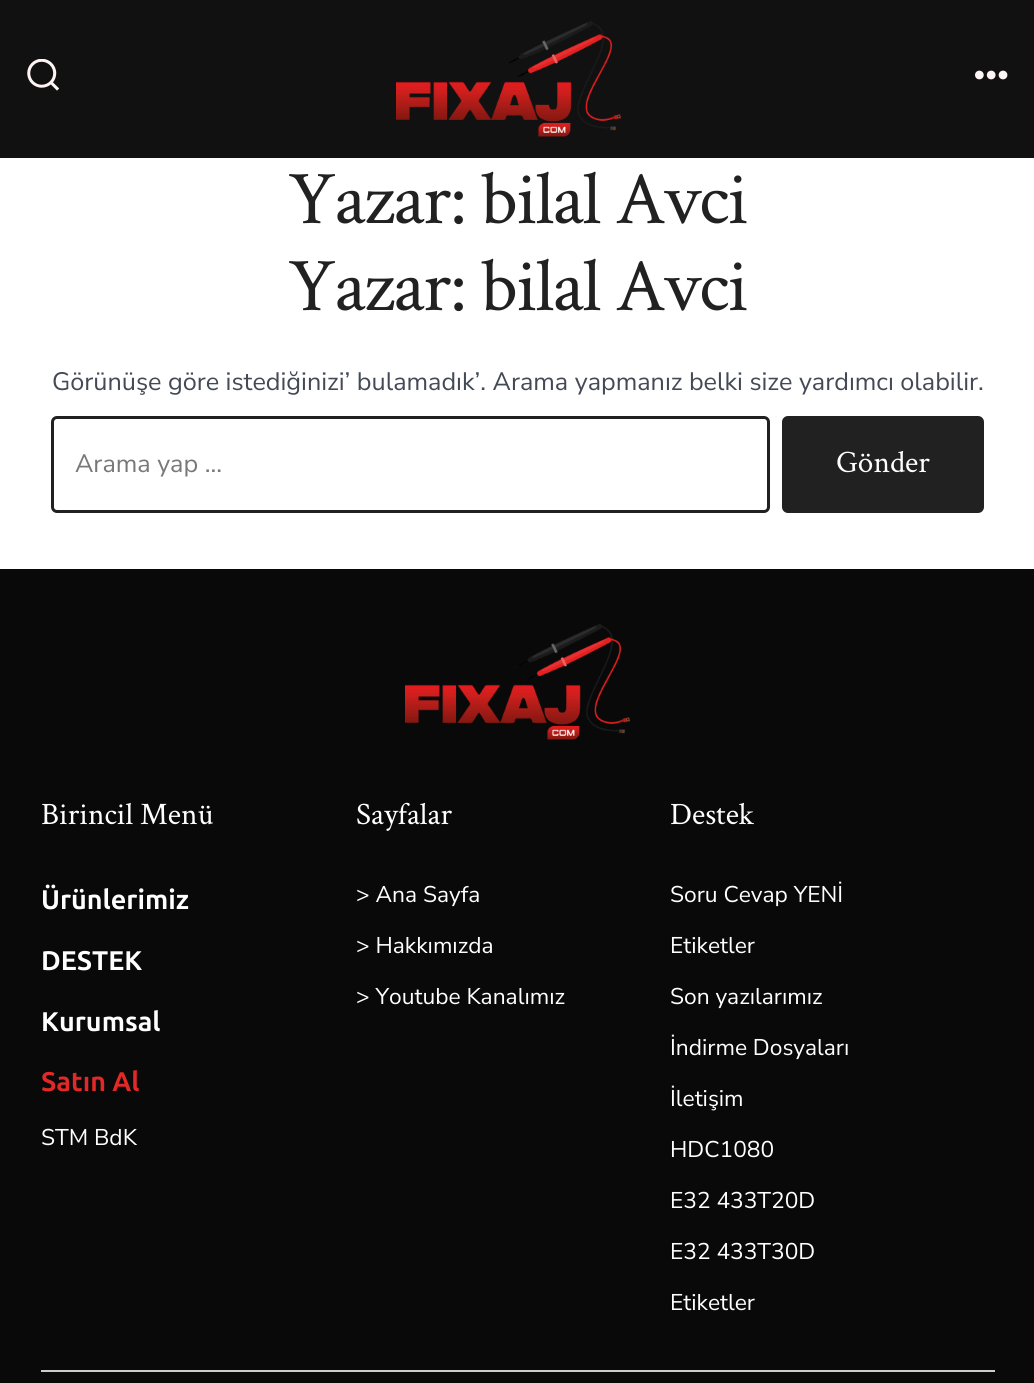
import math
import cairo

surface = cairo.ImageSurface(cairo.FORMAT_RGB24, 1034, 1383)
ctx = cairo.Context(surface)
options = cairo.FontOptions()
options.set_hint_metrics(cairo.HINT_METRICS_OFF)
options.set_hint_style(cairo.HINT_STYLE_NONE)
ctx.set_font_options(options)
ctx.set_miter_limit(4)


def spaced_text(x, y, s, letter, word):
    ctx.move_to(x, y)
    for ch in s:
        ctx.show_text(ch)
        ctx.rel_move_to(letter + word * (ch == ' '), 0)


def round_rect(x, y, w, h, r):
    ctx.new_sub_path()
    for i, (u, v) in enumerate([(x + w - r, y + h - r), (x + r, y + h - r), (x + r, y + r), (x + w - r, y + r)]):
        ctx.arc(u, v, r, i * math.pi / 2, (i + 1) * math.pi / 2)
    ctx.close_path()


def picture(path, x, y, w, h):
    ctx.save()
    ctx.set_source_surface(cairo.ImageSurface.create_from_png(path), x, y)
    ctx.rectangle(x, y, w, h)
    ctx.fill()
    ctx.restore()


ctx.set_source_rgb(1, 1, 1)
ctx.paint()
ctx.set_source_rgb(0.067, 0.067, 0.071)
ctx.rectangle(0, 0, 1034, 158)
ctx.fill()
picture("img1.png", 27, 59, 33, 32)
picture("img2.png", 396, 21, 225, 116)
picture("img3.png", 975, 70, 33, 10)
ctx.select_font_face("Crimson Text")
ctx.set_font_size(75.75)
ctx.set_source_rgb(0.129, 0.129, 0.129)
spaced_text(288, 223, "Yazar: bilal Avci", -1.5, 0)
spaced_text(288, 310, "Yazar: bilal Avci", -1.5, 0)
ctx.select_font_face("Nunito Sans")
ctx.set_font_size(25.2)
ctx.set_source_rgb(0.263, 0.29, 0.337)
ctx.move_to(52, 390)
ctx.show_text("Görünüşe göre istediğinizi’ bulamadık’. Arama yapmanız belki size yardımcı olabilir.")
round_rect(52.5, 417.5, 716, 94, 4.5)
ctx.set_source_rgb(0.129, 0.129, 0.129)
ctx.set_line_width(3)
ctx.stroke()
ctx.set_source_rgb(0.471, 0.471, 0.471)
ctx.move_to(75, 472)
ctx.show_text("Arama yap …")
ctx.set_source_rgb(0.129, 0.129, 0.129)
round_rect(782, 416, 202, 97, 6)
ctx.fill()
ctx.select_font_face("Crimson Text")
ctx.set_font_size(31.25)
ctx.set_source_rgb(1, 1, 1)
ctx.move_to(836, 472)
ctx.show_text("Gönder")
ctx.set_source_rgb(0.039, 0.039, 0.039)
ctx.rectangle(0, 569, 1034, 814)
ctx.fill()
picture("img4.png", 405, 624, 225, 116)
ctx.set_source_rgb(1, 1, 1)
ctx.move_to(41, 824)
ctx.show_text("Birincil Menü")
ctx.select_font_face("Ubuntu", cairo.FONT_SLANT_NORMAL, cairo.FONT_WEIGHT_BOLD)
ctx.set_font_size(27)
ctx.move_to(41, 909)
ctx.show_text("Ürünlerimiz")
ctx.move_to(41, 970)
ctx.show_text("DESTEK")
ctx.move_to(41, 1031)
ctx.show_text("Kurumsal")
ctx.set_source_rgb(0.89, 0.161, 0.153)
ctx.move_to(41, 1091)
ctx.show_text("Satın Al")
ctx.select_font_face("Nunito Sans")
ctx.set_font_size(22.75)
ctx.set_source_rgb(1, 1, 1)
ctx.move_to(41, 1145)
ctx.show_text("STM BdK")
ctx.select_font_face("Crimson Text")
ctx.set_font_size(31.25)
ctx.move_to(356, 824)
ctx.show_text("Sayfalar")
ctx.select_font_face("Nunito Sans")
ctx.set_font_size(22.75)
ctx.move_to(356, 902)
ctx.show_text("> Ana Sayfa")
ctx.move_to(356, 953)
ctx.show_text("> Hakkımızda")
ctx.move_to(356, 1004)
ctx.show_text("> Youtube Kanalımız")
ctx.select_font_face("Crimson Text")
ctx.set_font_size(31.25)
ctx.move_to(670, 824)
ctx.show_text("Destek")
ctx.select_font_face("Nunito Sans")
ctx.set_font_size(22.75)
ctx.move_to(670, 902)
ctx.show_text("Soru Cevap YENİ")
ctx.move_to(670, 953)
ctx.show_text("Etiketler")
ctx.move_to(670, 1004)
ctx.show_text("Son yazılarımız")
ctx.move_to(670, 1055)
ctx.show_text("İndirme Dosyaları")
ctx.move_to(670, 1106)
ctx.show_text("İletişim")
ctx.move_to(670, 1157)
ctx.show_text("HDC1080")
ctx.move_to(670, 1208)
ctx.show_text("E32 433T20D")
ctx.move_to(670, 1259)
ctx.show_text("E32 433T30D")
ctx.move_to(670, 1310)
ctx.show_text("Etiketler")
ctx.set_source_rgb(0.8, 0.8, 0.8)
ctx.rectangle(41, 1370, 954, 2)
ctx.fill()
surface.write_to_png("page.png")
